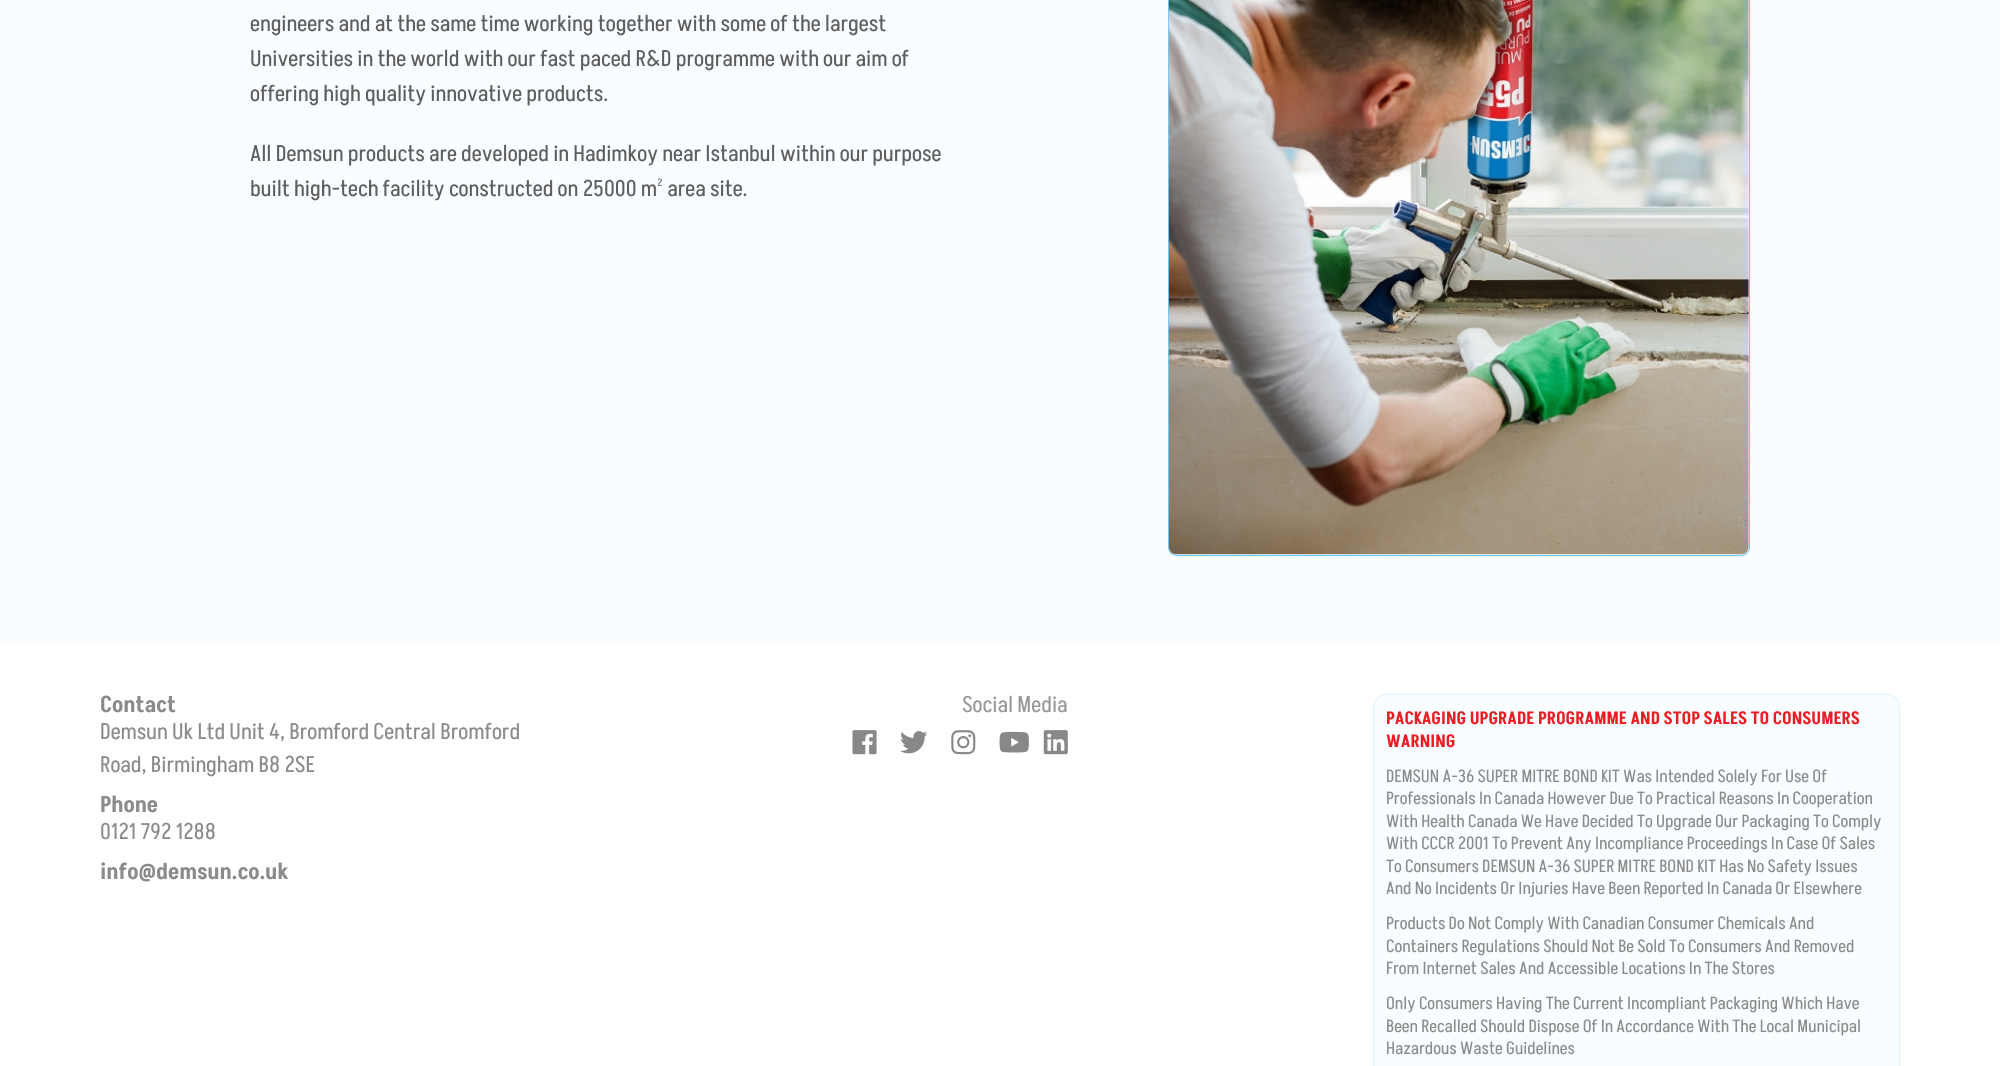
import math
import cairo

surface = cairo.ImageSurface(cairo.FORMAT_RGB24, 2000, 1066)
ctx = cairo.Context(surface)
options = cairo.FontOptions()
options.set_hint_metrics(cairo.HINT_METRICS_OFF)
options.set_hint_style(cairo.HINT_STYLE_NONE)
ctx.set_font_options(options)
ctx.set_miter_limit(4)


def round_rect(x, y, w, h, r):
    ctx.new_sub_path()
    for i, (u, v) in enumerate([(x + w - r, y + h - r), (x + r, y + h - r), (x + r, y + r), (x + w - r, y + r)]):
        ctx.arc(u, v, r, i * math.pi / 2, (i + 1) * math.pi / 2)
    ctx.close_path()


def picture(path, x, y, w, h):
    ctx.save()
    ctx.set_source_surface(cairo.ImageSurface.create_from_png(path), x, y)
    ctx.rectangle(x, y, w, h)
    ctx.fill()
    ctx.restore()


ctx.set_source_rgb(0.976, 0.992, 1)
ctx.paint()
ctx.select_font_face("Akshar")
ctx.set_font_size(22.5)
ctx.set_source_rgb(0.369, 0.369, 0.369)
ctx.move_to(250, 31)
ctx.show_text("engineers and at the same time working together with some of the largest")
ctx.move_to(250, 66)
ctx.show_text("Universities in the world with our fast paced R&D programme with our aim of")
ctx.move_to(250, 101)
ctx.show_text("offering high quality innovative products.")
ctx.move_to(250, 161)
ctx.show_text("All Demsun products are developed in Hadimkoy near Istanbul within our purpose")
ctx.move_to(250, 196)
ctx.show_text("built high-tech facility constructed on 25000 m² area site.")
round_rect(1168.5, -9.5, 581, 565, 8.5)
ctx.set_source_rgb(0.431, 0.788, 0.996)
ctx.set_line_width(1)
ctx.stroke()
picture("img1.png", 1168, 0, 581, 555)
ctx.set_source_rgb(1, 1, 1)
ctx.rectangle(0, 644, 2000, 422)
ctx.fill()
ctx.select_font_face("Akshar SemiBold")
ctx.set_source_rgb(0.545, 0.545, 0.545)
ctx.move_to(100, 712)
ctx.show_text("Contact")
ctx.select_font_face("Akshar")
ctx.move_to(100, 739)
ctx.show_text("Demsun Uk Ltd Unit 4, Bromford Central Bromford")
ctx.move_to(100, 772)
ctx.show_text("Road, Birmingham B8 2SE")
ctx.select_font_face("Akshar SemiBold")
ctx.move_to(100, 812)
ctx.show_text("Phone")
ctx.select_font_face("Akshar")
ctx.move_to(100, 839)
ctx.show_text("0121 792 1288")
ctx.select_font_face("Akshar SemiBold")
ctx.move_to(100, 879)
ctx.show_text("info@demsun.co.uk")
ctx.select_font_face("Akshar")
ctx.set_source_rgb(0.596, 0.596, 0.596)
ctx.move_to(962, 712)
ctx.show_text("Social Media")
picture("img2.png", 852, 730, 25, 25)
picture("img3.png", 900, 731, 28, 23)
picture("img4.png", 951, 730, 25, 25)
picture("img5.png", 999, 731, 30, 22)
picture("img6.png", 1043, 730, 25, 25)
ctx.set_source_rgb(0.976, 0.992, 1)
round_rect(1373.5, 694.5, 526, 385, 12.5)
ctx.fill_preserve()
ctx.set_source_rgb(0.871, 0.953, 1)
ctx.stroke()
ctx.select_font_face("Akshar SemiBold")
ctx.set_font_size(17.5)
ctx.set_source_rgb(0.925, 0.11, 0.141)
ctx.move_to(1386, 724)
ctx.show_text("PACKAGING UPGRADE PROGRAMME AND STOP SALES TO CONSUMERS")
ctx.move_to(1386, 747)
ctx.show_text("WARNING")
ctx.select_font_face("Akshar")
ctx.set_source_rgb(0.545, 0.545, 0.545)
ctx.move_to(1386, 782)
ctx.show_text("DEMSUN A-36 SUPER MITRE BOND KIT Was Intended Solely For Use Of")
ctx.move_to(1386, 804)
ctx.show_text("Professionals In Canada However Due To Practical Reasons In Cooperation")
ctx.move_to(1386, 827)
ctx.show_text("With Health Canada We Have Decided To Upgrade Our Packaging To Comply")
ctx.move_to(1386, 849)
ctx.show_text("With CCCR 2001 To Prevent Any Incompliance Proceedings In Case Of Sales")
ctx.move_to(1386, 872)
ctx.show_text("To Consumers DEMSUN A-36 SUPER MITRE BOND KIT Has No Safety Issues")
ctx.move_to(1386, 894)
ctx.show_text("And No Incidents Or Injuries Have Been Reported In Canada Or Elsewhere")
ctx.move_to(1386, 929)
ctx.show_text("Products Do Not Comply With Canadian Consumer Chemicals And")
ctx.move_to(1386, 952)
ctx.show_text("Containers Regulations Should Not Be Sold To Consumers And Removed")
ctx.move_to(1386, 974)
ctx.show_text("From Internet Sales And Accessible Locations In The Stores")
ctx.move_to(1386, 1009)
ctx.show_text("Only Consumers Having The Current Incompliant Packaging Which Have")
ctx.move_to(1386, 1032)
ctx.show_text("Been Recalled Should Dispose Of In Accordance With The Local Municipal")
ctx.move_to(1386, 1054)
ctx.show_text("Hazardous Waste Guidelines")
surface.write_to_png("page.png")
